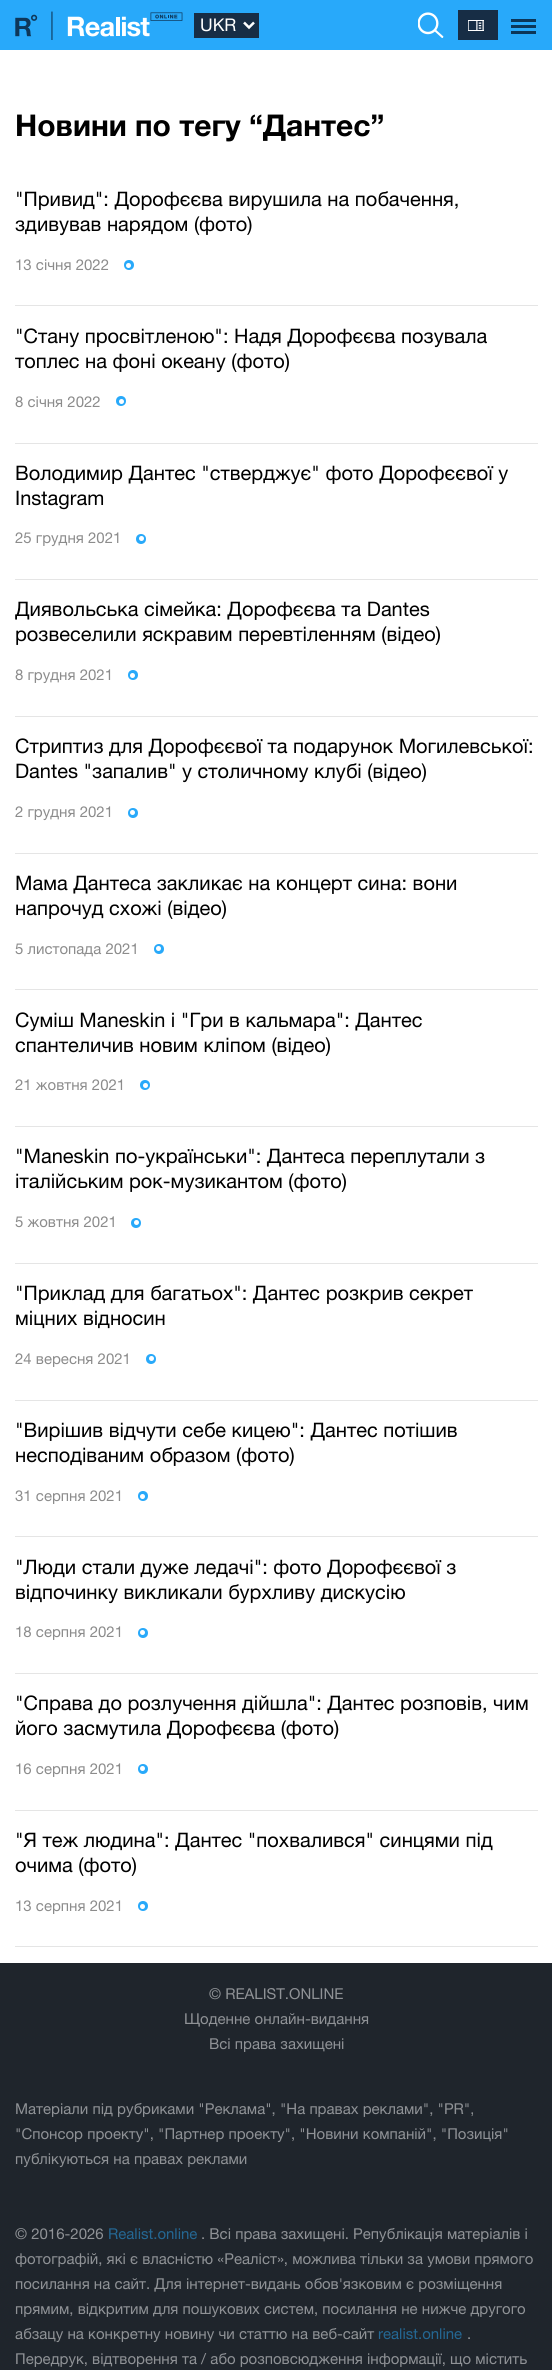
import math
import cairo

surface = cairo.ImageSurface(cairo.FORMAT_RGB24, 552, 2370)
ctx = cairo.Context(surface)
options = cairo.FontOptions()
options.set_hint_metrics(cairo.HINT_METRICS_OFF)
options.set_hint_style(cairo.HINT_STYLE_NONE)
ctx.set_font_options(options)
ctx.set_miter_limit(4)


def picture(path, x, y, w, h):
    ctx.save()
    ctx.set_source_surface(cairo.ImageSurface.create_from_png(path), x, y)
    ctx.rectangle(x, y, w, h)
    ctx.fill()
    ctx.restore()


ctx.set_source_rgb(1, 1, 1)
ctx.paint()
ctx.set_source_rgb(0.157, 0.663, 0.98)
ctx.rectangle(0, 0, 552, 50)
ctx.fill()
picture("img1.png", 15, 11, 168, 29)
ctx.set_source_rgb(0.09, 0.176, 0.271)
ctx.rectangle(194, 13, 65, 25)
ctx.fill()
ctx.new_path()
ctx.move_to(244, 22.5)
ctx.line_to(249, 27.5)
ctx.line_to(254, 22.5)
ctx.set_source_rgb(1, 1, 1)
ctx.set_line_width(2.5)
ctx.stroke()
ctx.select_font_face("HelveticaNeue")
ctx.set_font_size(17.5)
ctx.move_to(200, 31)
ctx.show_text("UKR")
picture("img2.png", 418, 12, 26, 26)
ctx.set_source_rgb(0.09, 0.176, 0.271)
ctx.rectangle(458, 10, 40, 30)
ctx.fill()
picture("img3.png", 468, 20, 16, 11)
ctx.set_source_rgb(0.043, 0.212, 0.349)
ctx.rectangle(511, 25, 25, 3)
ctx.fill()
ctx.rectangle(511, 19, 25, 3)
ctx.fill()
ctx.rectangle(511, 31, 25, 3)
ctx.fill()
ctx.select_font_face("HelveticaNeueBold", cairo.FONT_SLANT_NORMAL, cairo.FONT_WEIGHT_BOLD)
ctx.set_font_size(30)
ctx.set_source_rgb(0, 0, 0)
ctx.move_to(15, 136)
ctx.show_text("Новини по тегу “Дантес”")
ctx.select_font_face("HelveticaNeue")
ctx.set_font_size(20)
ctx.move_to(15, 206)
ctx.show_text("\"Привид\": Дорофєєва вирушила на побачення,")
ctx.move_to(15, 231)
ctx.show_text("здивував нарядом (фото)")
ctx.set_font_size(15)
ctx.set_source_rgb(0.549, 0.549, 0.549)
ctx.move_to(15, 270)
ctx.show_text("13 сiчня 2022")
ctx.set_source_rgb(0.157, 0.663, 0.98)
ctx.new_path()
ctx.arc(129, 265, 5, 0, 2 * math.pi)
ctx.fill()
ctx.set_source_rgb(1, 1, 1)
ctx.arc(128.5, 265.5, 2.5, 0, 2 * math.pi)
ctx.fill()
ctx.set_source_rgb(0.898, 0.898, 0.898)
ctx.rectangle(15, 305, 523, 1)
ctx.fill()
ctx.set_font_size(20)
ctx.set_source_rgb(0, 0, 0)
ctx.move_to(15, 343)
ctx.show_text("\"Стану просвітленою\": Надя Дорофєєва позувала")
ctx.move_to(15, 368)
ctx.show_text("топлес на фоні океану (фото)")
ctx.set_font_size(15)
ctx.set_source_rgb(0.549, 0.549, 0.549)
ctx.move_to(15, 407)
ctx.show_text("8 сiчня 2022")
ctx.set_source_rgb(0.157, 0.663, 0.98)
ctx.new_path()
ctx.arc(121, 401, 5, 0, 2 * math.pi)
ctx.fill()
ctx.set_source_rgb(1, 1, 1)
ctx.arc(121.5, 401.5, 2.5, 0, 2 * math.pi)
ctx.fill()
ctx.set_source_rgb(0.898, 0.898, 0.898)
ctx.rectangle(15, 443, 523, 1)
ctx.fill()
ctx.set_font_size(20)
ctx.set_source_rgb(0, 0, 0)
ctx.move_to(15, 480)
ctx.show_text("Володимир Дантес \"стверджує\" фото Дорофєєвої у")
ctx.move_to(15, 505)
ctx.show_text("Instagram")
ctx.set_font_size(15)
ctx.set_source_rgb(0.549, 0.549, 0.549)
ctx.move_to(15, 543)
ctx.show_text("25 грудня 2021")
ctx.set_source_rgb(0.157, 0.663, 0.98)
ctx.new_path()
ctx.arc(141, 539, 5, 0, 2 * math.pi)
ctx.fill()
ctx.set_source_rgb(1, 1, 1)
ctx.arc(141.5, 538.5, 2.5, 0, 2 * math.pi)
ctx.fill()
ctx.set_source_rgb(0.898, 0.898, 0.898)
ctx.rectangle(15, 579, 523, 1)
ctx.fill()
ctx.set_font_size(20)
ctx.set_source_rgb(0, 0, 0)
ctx.move_to(15, 616)
ctx.show_text("Диявольська сімейка: Дорофєєва та Dantes")
ctx.move_to(15, 641)
ctx.show_text("розвеселили яскравим перевтіленням (відео)")
ctx.set_font_size(15)
ctx.set_source_rgb(0.549, 0.549, 0.549)
ctx.move_to(15, 680)
ctx.show_text("8 грудня 2021")
ctx.set_source_rgb(0.157, 0.663, 0.98)
ctx.new_path()
ctx.arc(133, 675, 5, 0, 2 * math.pi)
ctx.fill()
ctx.set_source_rgb(1, 1, 1)
ctx.arc(132.5, 675.5, 2.5, 0, 2 * math.pi)
ctx.fill()
ctx.set_source_rgb(0.898, 0.898, 0.898)
ctx.rectangle(15, 716, 523, 1)
ctx.fill()
ctx.set_font_size(20)
ctx.set_source_rgb(0, 0, 0)
ctx.move_to(15, 753)
ctx.show_text("Стриптиз для Дорофєєвої та подарунок Могилевської:")
ctx.move_to(15, 778)
ctx.show_text("Dantes \"запалив\" у столичному клубі (відео)")
ctx.set_font_size(15)
ctx.set_source_rgb(0.549, 0.549, 0.549)
ctx.move_to(15, 817)
ctx.show_text("2 грудня 2021")
ctx.set_source_rgb(0.157, 0.663, 0.98)
ctx.new_path()
ctx.arc(133, 813, 5, 0, 2 * math.pi)
ctx.fill()
ctx.set_source_rgb(1, 1, 1)
ctx.arc(132.5, 812.5, 2.5, 0, 2 * math.pi)
ctx.fill()
ctx.set_source_rgb(0.898, 0.898, 0.898)
ctx.rectangle(15, 853, 523, 1)
ctx.fill()
ctx.set_font_size(20)
ctx.set_source_rgb(0, 0, 0)
ctx.move_to(15, 890)
ctx.show_text("Мама Дантеса закликає на концерт сина: вони")
ctx.move_to(15, 915)
ctx.show_text("напрочуд схожі (відео)")
ctx.set_font_size(15)
ctx.set_source_rgb(0.549, 0.549, 0.549)
ctx.move_to(15, 954)
ctx.show_text("5 листопада 2021")
ctx.set_source_rgb(0.157, 0.663, 0.98)
ctx.new_path()
ctx.arc(159, 949, 5, 0, 2 * math.pi)
ctx.fill()
ctx.set_source_rgb(1, 1, 1)
ctx.arc(158.5, 948.5, 2.5, 0, 2 * math.pi)
ctx.fill()
ctx.set_source_rgb(0.898, 0.898, 0.898)
ctx.rectangle(15, 989, 523, 1)
ctx.fill()
ctx.set_font_size(20)
ctx.set_source_rgb(0, 0, 0)
ctx.move_to(15, 1027)
ctx.show_text("Суміш Maneskin і \"Гри в кальмара\": Дантес")
ctx.move_to(15, 1052)
ctx.show_text("спантеличив новим кліпом (відео)")
ctx.set_font_size(15)
ctx.set_source_rgb(0.549, 0.549, 0.549)
ctx.move_to(15, 1090)
ctx.show_text("21 жовтня 2021")
ctx.set_source_rgb(0.157, 0.663, 0.98)
ctx.new_path()
ctx.arc(145, 1085, 5, 0, 2 * math.pi)
ctx.fill()
ctx.set_source_rgb(1, 1, 1)
ctx.arc(145.5, 1085.5, 2.5, 0, 2 * math.pi)
ctx.fill()
ctx.set_source_rgb(0.898, 0.898, 0.898)
ctx.rectangle(15, 1126, 523, 1)
ctx.fill()
ctx.set_font_size(20)
ctx.set_source_rgb(0, 0, 0)
ctx.move_to(15, 1163)
ctx.show_text("\"Maneskin по-українськи\": Дантеса переплутали з")
ctx.move_to(15, 1188)
ctx.show_text("італійським рок-музикантом (фото)")
ctx.set_font_size(15)
ctx.set_source_rgb(0.549, 0.549, 0.549)
ctx.move_to(15, 1227)
ctx.show_text("5 жовтня 2021")
ctx.set_source_rgb(0.157, 0.663, 0.98)
ctx.new_path()
ctx.arc(136, 1223, 5, 0, 2 * math.pi)
ctx.fill()
ctx.set_source_rgb(1, 1, 1)
ctx.arc(136.5, 1222.5, 2.5, 0, 2 * math.pi)
ctx.fill()
ctx.set_source_rgb(0.898, 0.898, 0.898)
ctx.rectangle(15, 1263, 523, 1)
ctx.fill()
ctx.set_font_size(20)
ctx.set_source_rgb(0, 0, 0)
ctx.move_to(15, 1300)
ctx.show_text("\"Приклад для багатьох\": Дантес розкрив секрет")
ctx.move_to(15, 1325)
ctx.show_text("міцних відносин")
ctx.set_font_size(15)
ctx.set_source_rgb(0.549, 0.549, 0.549)
ctx.move_to(15, 1364)
ctx.show_text("24 вересня 2021")
ctx.set_source_rgb(0.157, 0.663, 0.98)
ctx.new_path()
ctx.arc(151, 1359, 5, 0, 2 * math.pi)
ctx.fill()
ctx.set_source_rgb(1, 1, 1)
ctx.arc(151.5, 1358.5, 2.5, 0, 2 * math.pi)
ctx.fill()
ctx.set_source_rgb(0.898, 0.898, 0.898)
ctx.rectangle(15, 1400, 523, 1)
ctx.fill()
ctx.set_font_size(20)
ctx.set_source_rgb(0, 0, 0)
ctx.move_to(15, 1437)
ctx.show_text("\"Вирішив відчути себе кицею\": Дантес потішив")
ctx.move_to(15, 1462)
ctx.show_text("несподіваним образом (фото)")
ctx.set_font_size(15)
ctx.set_source_rgb(0.549, 0.549, 0.549)
ctx.move_to(15, 1501)
ctx.show_text("31 серпня 2021")
ctx.set_source_rgb(0.157, 0.663, 0.98)
ctx.new_path()
ctx.arc(143, 1496, 5, 0, 2 * math.pi)
ctx.fill()
ctx.set_source_rgb(1, 1, 1)
ctx.arc(142.5, 1496.5, 2.5, 0, 2 * math.pi)
ctx.fill()
ctx.set_source_rgb(0.898, 0.898, 0.898)
ctx.rectangle(15, 1536, 523, 1)
ctx.fill()
ctx.set_font_size(20)
ctx.set_source_rgb(0, 0, 0)
ctx.move_to(15, 1574)
ctx.show_text("\"Люди стали дуже ледачі\": фото Дорофєєвої з")
ctx.move_to(15, 1599)
ctx.show_text("відпочинку викликали бурхливу дискусію")
ctx.set_font_size(15)
ctx.set_source_rgb(0.549, 0.549, 0.549)
ctx.move_to(15, 1637)
ctx.show_text("18 серпня 2021")
ctx.set_source_rgb(0.157, 0.663, 0.98)
ctx.new_path()
ctx.arc(143, 1633, 5, 0, 2 * math.pi)
ctx.fill()
ctx.set_source_rgb(1, 1, 1)
ctx.arc(142.5, 1632.5, 2.5, 0, 2 * math.pi)
ctx.fill()
ctx.set_source_rgb(0.898, 0.898, 0.898)
ctx.rectangle(15, 1673, 523, 1)
ctx.fill()
ctx.set_font_size(20)
ctx.set_source_rgb(0, 0, 0)
ctx.move_to(15, 1710)
ctx.show_text("\"Справа до розлучення дійшла\": Дантес розповів, чим")
ctx.move_to(15, 1735)
ctx.show_text("його засмутила Дорофєєва (фото)")
ctx.set_font_size(15)
ctx.set_source_rgb(0.549, 0.549, 0.549)
ctx.move_to(15, 1774)
ctx.show_text("16 серпня 2021")
ctx.set_source_rgb(0.157, 0.663, 0.98)
ctx.new_path()
ctx.arc(143, 1769, 5, 0, 2 * math.pi)
ctx.fill()
ctx.set_source_rgb(1, 1, 1)
ctx.arc(142.5, 1768.5, 2.5, 0, 2 * math.pi)
ctx.fill()
ctx.set_source_rgb(0.898, 0.898, 0.898)
ctx.rectangle(15, 1810, 523, 1)
ctx.fill()
ctx.set_font_size(20)
ctx.set_source_rgb(0, 0, 0)
ctx.move_to(15, 1847)
ctx.show_text("\"Я теж людина\": Дантес \"похвалився\" синцями під")
ctx.move_to(15, 1872)
ctx.show_text("очима (фото)")
ctx.set_font_size(15)
ctx.set_source_rgb(0.549, 0.549, 0.549)
ctx.move_to(15, 1911)
ctx.show_text("13 серпня 2021")
ctx.set_source_rgb(0.157, 0.663, 0.98)
ctx.new_path()
ctx.arc(143, 1906, 5, 0, 2 * math.pi)
ctx.fill()
ctx.set_source_rgb(1, 1, 1)
ctx.arc(142.5, 1906.5, 2.5, 0, 2 * math.pi)
ctx.fill()
ctx.set_source_rgb(0.898, 0.898, 0.898)
ctx.rectangle(15, 1946, 523, 1)
ctx.fill()
ctx.set_source_rgb(0.122, 0.145, 0.173)
ctx.rectangle(0, 1963, 552, 407)
ctx.fill()
ctx.set_source_rgb(0.561, 0.573, 0.588)
ctx.move_to(209, 1999)
ctx.show_text("© REALIST.ONLINE")
ctx.move_to(184, 2024)
ctx.show_text("Щоденне онлайн-видання")
ctx.move_to(209, 2049)
ctx.show_text("Всі права захищені")
ctx.move_to(15, 2114)
ctx.show_text("Матеріали під рубриками \"Реклама\", \"На правах реклами\", \"PR\",")
ctx.move_to(15, 2139)
ctx.show_text("\"Спонсор проекту\", \"Партнер проекту\", \"Новини компаній\", \"Позиція\"")
ctx.move_to(15, 2164)
ctx.show_text("публікуються на правах реклами")
ctx.move_to(15, 2239)
ctx.show_text("© 2016-2026")
ctx.set_source_rgb(0.141, 0.404, 0.576)
ctx.move_to(108, 2239)
ctx.show_text("Realist.online")
ctx.set_source_rgb(0.561, 0.573, 0.588)
ctx.move_to(201, 2239)
ctx.show_text(". Всі права захищені. Републікація матеріалів і")
ctx.move_to(15, 2264)
ctx.show_text("фотографій, які є власністю «Реаліст», можлива тільки за умови прямого")
ctx.move_to(15, 2289)
ctx.show_text("посилання на сайт. Для інтернет-видань обов'язковим є розміщення")
ctx.move_to(15, 2314)
ctx.show_text("прямим, відкритим для пошукових систем, посилання не нижче другого")
ctx.move_to(15, 2339)
ctx.show_text("абзацу на конкретну новину чи статтю на веб-сайт")
ctx.set_source_rgb(0.141, 0.404, 0.576)
ctx.move_to(378, 2339)
ctx.show_text("realist.online")
ctx.set_source_rgb(0.561, 0.573, 0.588)
ctx.move_to(467, 2339)
ctx.show_text(".")
ctx.move_to(15, 2364)
ctx.show_text("Передрук, відтворення та / або розповсюдження інформації, що містить")
surface.write_to_png("page.png")
